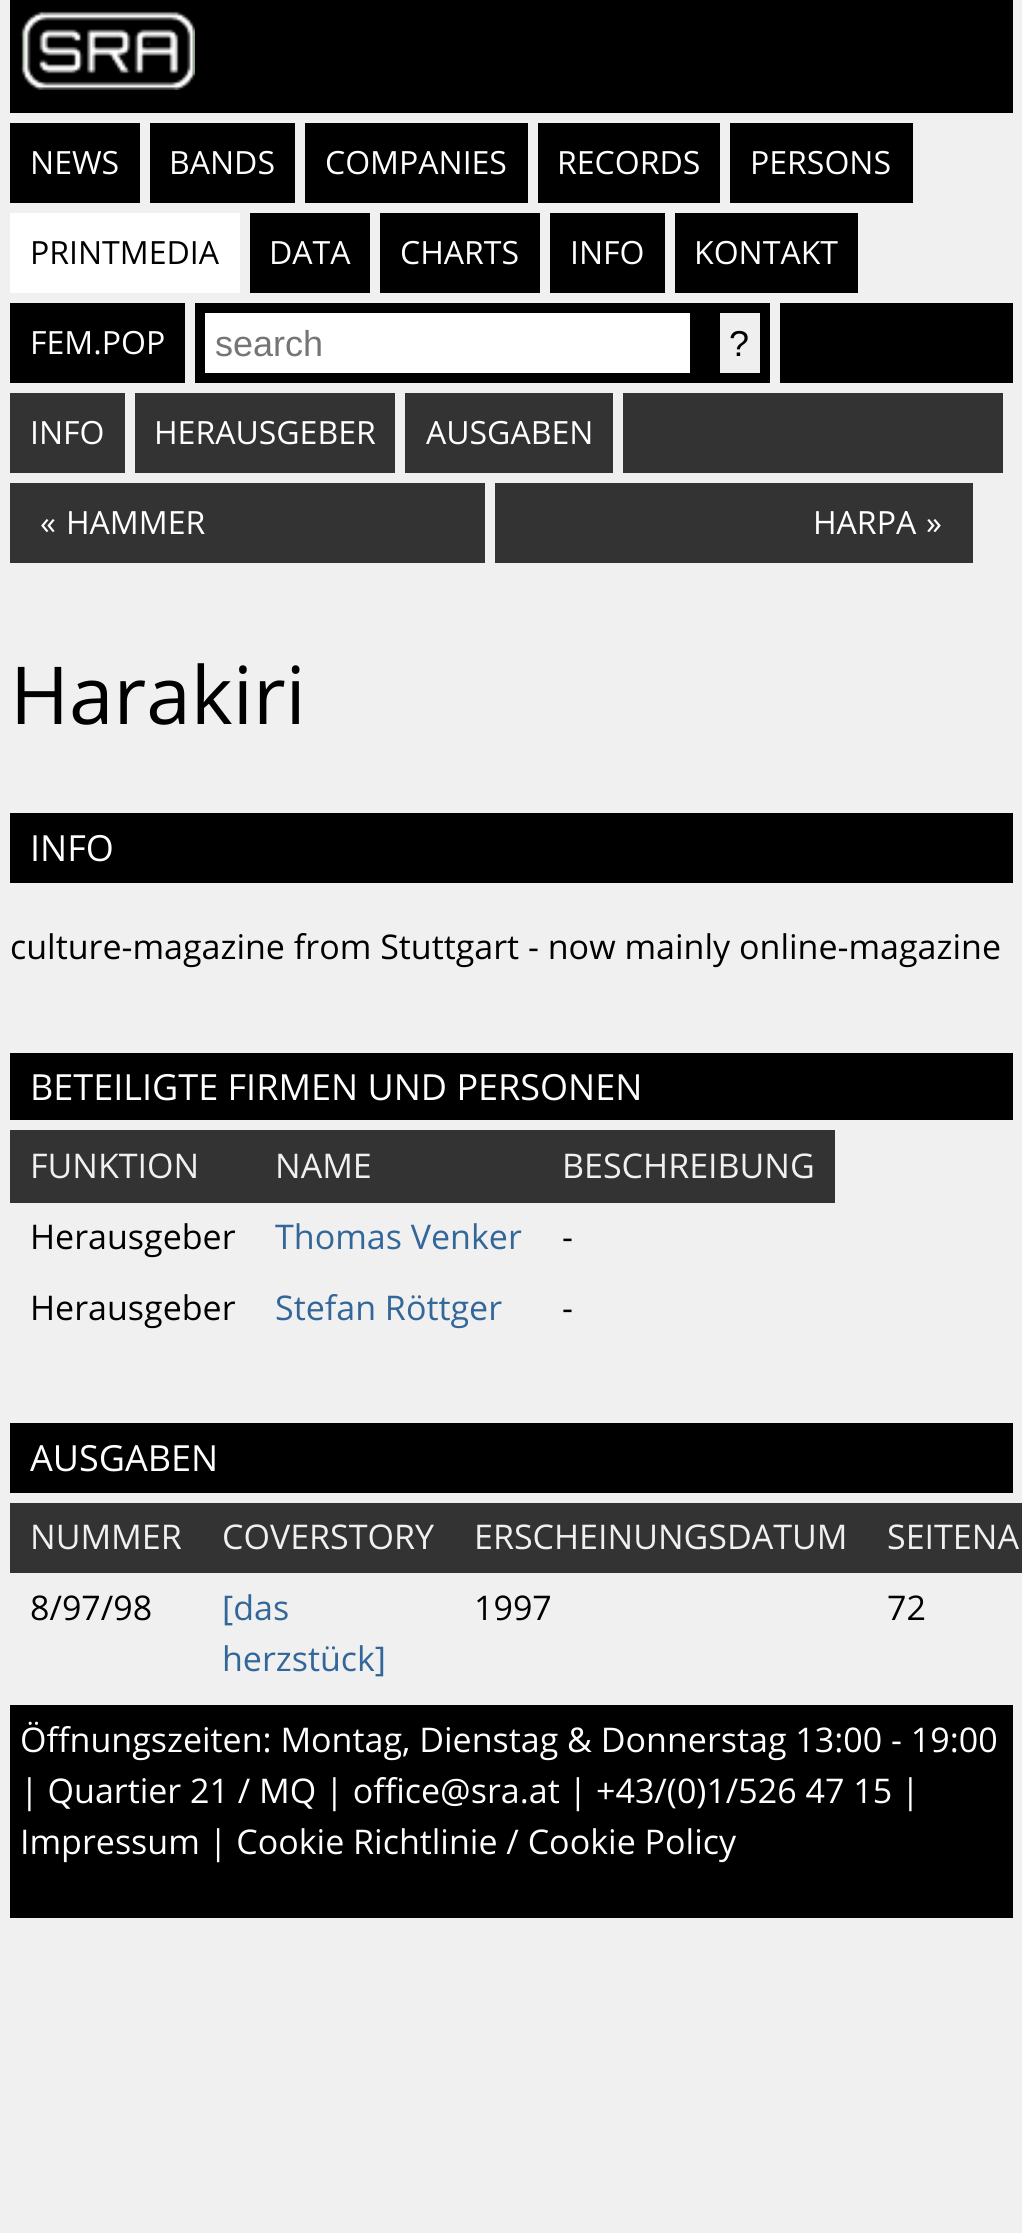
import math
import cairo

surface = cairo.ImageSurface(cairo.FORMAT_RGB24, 1022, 2233)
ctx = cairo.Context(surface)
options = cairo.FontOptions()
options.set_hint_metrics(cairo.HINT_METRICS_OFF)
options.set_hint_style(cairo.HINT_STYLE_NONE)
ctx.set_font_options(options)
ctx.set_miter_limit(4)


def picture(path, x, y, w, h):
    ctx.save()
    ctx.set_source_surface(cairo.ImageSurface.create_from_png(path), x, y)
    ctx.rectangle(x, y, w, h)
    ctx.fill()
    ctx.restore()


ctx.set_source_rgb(0.941, 0.941, 0.941)
ctx.paint()
ctx.set_source_rgb(0, 0, 0)
ctx.rectangle(10, 0, 1003, 113)
ctx.fill()
picture("img1.png", 20, 11, 175, 79)
ctx.rectangle(10, 123, 130, 80)
ctx.fill()
ctx.select_font_face("Open Sans")
ctx.set_font_size(32)
ctx.set_source_rgb(1, 1, 1)
ctx.move_to(30, 174)
ctx.show_text("NEWS")
ctx.set_source_rgb(0, 0, 0)
ctx.rectangle(150, 123, 145, 80)
ctx.fill()
ctx.set_source_rgb(1, 1, 1)
ctx.move_to(169, 174)
ctx.show_text("BANDS")
ctx.set_source_rgb(0, 0, 0)
ctx.rectangle(305, 123, 223, 80)
ctx.fill()
ctx.set_source_rgb(1, 1, 1)
ctx.move_to(325, 174)
ctx.show_text("COMPANIES")
ctx.set_source_rgb(0, 0, 0)
ctx.rectangle(538, 123, 182, 80)
ctx.fill()
ctx.set_source_rgb(1, 1, 1)
ctx.move_to(557, 174)
ctx.show_text("RECORDS")
ctx.set_source_rgb(0, 0, 0)
ctx.rectangle(730, 123, 183, 80)
ctx.fill()
ctx.set_source_rgb(1, 1, 1)
ctx.move_to(750, 174)
ctx.show_text("PERSONS")
ctx.rectangle(10, 213, 230, 80)
ctx.fill()
ctx.set_source_rgb(0, 0, 0)
ctx.move_to(30, 264)
ctx.show_text("PRINTMEDIA")
ctx.rectangle(250, 213, 120, 80)
ctx.fill()
ctx.set_source_rgb(1, 1, 1)
ctx.move_to(269, 264)
ctx.show_text("DATA")
ctx.set_source_rgb(0, 0, 0)
ctx.rectangle(380, 213, 160, 80)
ctx.fill()
ctx.set_source_rgb(1, 1, 1)
ctx.move_to(400, 264)
ctx.show_text("CHARTS")
ctx.set_source_rgb(0, 0, 0)
ctx.rectangle(550, 213, 115, 80)
ctx.fill()
ctx.set_source_rgb(1, 1, 1)
ctx.move_to(570, 264)
ctx.show_text("INFO")
ctx.set_source_rgb(0, 0, 0)
ctx.rectangle(675, 213, 183, 80)
ctx.fill()
ctx.set_source_rgb(1, 1, 1)
ctx.move_to(694, 264)
ctx.show_text("KONTAKT")
ctx.set_source_rgb(0, 0, 0)
ctx.rectangle(10, 303, 175, 80)
ctx.fill()
ctx.set_source_rgb(1, 1, 1)
ctx.move_to(30, 354)
ctx.show_text("FEM.POP")
ctx.set_source_rgb(0, 0, 0)
ctx.rectangle(195, 303, 575, 80)
ctx.fill()
ctx.set_source_rgb(1, 1, 1)
ctx.rectangle(205, 313, 485, 60)
ctx.fill()
ctx.select_font_face("Liberation Sans")
ctx.set_font_size(36)
ctx.set_source_rgb(0.459, 0.459, 0.459)
ctx.move_to(215, 356)
ctx.show_text("search")
ctx.set_source_rgb(0.937, 0.937, 0.937)
ctx.rectangle(720, 313, 40, 60)
ctx.fill()
ctx.set_source_rgb(0, 0, 0)
ctx.move_to(729, 356)
ctx.show_text("?")
ctx.rectangle(780, 303, 233, 80)
ctx.fill()
ctx.set_source_rgb(0.2, 0.2, 0.2)
ctx.rectangle(10, 393, 115, 80)
ctx.fill()
ctx.select_font_face("Open Sans")
ctx.set_font_size(32)
ctx.set_source_rgb(1, 1, 1)
ctx.move_to(30, 444)
ctx.show_text("INFO")
ctx.set_source_rgb(0.2, 0.2, 0.2)
ctx.rectangle(135, 393, 260, 80)
ctx.fill()
ctx.set_source_rgb(1, 1, 1)
ctx.move_to(154, 444)
ctx.show_text("HERAUSGEBER")
ctx.set_source_rgb(0.2, 0.2, 0.2)
ctx.rectangle(405, 393, 208, 80)
ctx.fill()
ctx.set_source_rgb(1, 1, 1)
ctx.move_to(426, 444)
ctx.show_text("AUSGABEN")
ctx.set_source_rgb(0.2, 0.2, 0.2)
ctx.rectangle(623, 393, 380, 80)
ctx.fill()
ctx.rectangle(10, 483, 475, 80)
ctx.fill()
ctx.set_source_rgb(1, 1, 1)
ctx.move_to(40, 534)
ctx.show_text("«")
ctx.move_to(66, 534)
ctx.show_text("HAMMER")
ctx.set_source_rgb(0.2, 0.2, 0.2)
ctx.rectangle(495, 483, 478, 80)
ctx.fill()
ctx.set_source_rgb(1, 1, 1)
ctx.move_to(813, 534)
ctx.show_text("HARPA")
ctx.move_to(926, 534)
ctx.show_text("»")
ctx.set_font_size(80)
ctx.set_source_rgb(0, 0, 0)
ctx.move_to(10, 724)
ctx.show_text("Harakiri")
ctx.rectangle(10, 813, 1003, 70)
ctx.fill()
ctx.set_font_size(36)
ctx.set_source_rgb(1, 1, 1)
ctx.move_to(30, 861)
ctx.show_text("INFO")
ctx.set_font_size(34)
ctx.set_source_rgb(0, 0, 0)
ctx.move_to(10, 959)
ctx.show_text("culture-magazine from Stuttgart - now mainly online-magazine")
ctx.rectangle(10, 1053, 1003, 67)
ctx.fill()
ctx.set_font_size(36)
ctx.set_source_rgb(1, 1, 1)
ctx.move_to(30, 1100)
ctx.show_text("BETEILIGTE FIRMEN UND PERSONEN")
ctx.set_source_rgb(0.2, 0.2, 0.2)
ctx.rectangle(10, 1130, 825, 73)
ctx.fill()
ctx.set_font_size(34)
ctx.set_source_rgb(0.941, 0.941, 0.941)
ctx.move_to(30, 1178)
ctx.show_text("FUNKTION")
ctx.move_to(275, 1178)
ctx.show_text("NAME")
ctx.move_to(562, 1178)
ctx.show_text("BESCHREIBUNG")
ctx.set_source_rgb(0, 0, 0)
ctx.move_to(30, 1249)
ctx.show_text("Herausgeber")
ctx.set_source_rgb(0.2, 0.4, 0.6)
ctx.move_to(275, 1249)
ctx.show_text("Thomas Venker")
ctx.set_source_rgb(0, 0, 0)
ctx.move_to(562, 1249)
ctx.show_text("-")
ctx.move_to(30, 1320)
ctx.show_text("Herausgeber")
ctx.set_source_rgb(0.2, 0.4, 0.6)
ctx.move_to(275, 1320)
ctx.show_text("Stefan Röttger")
ctx.set_source_rgb(0, 0, 0)
ctx.move_to(562, 1320)
ctx.show_text("-")
ctx.rectangle(10, 1423, 1003, 70)
ctx.fill()
ctx.set_font_size(36)
ctx.set_source_rgb(1, 1, 1)
ctx.move_to(30, 1471)
ctx.show_text("AUSGABEN")
ctx.set_source_rgb(0.2, 0.2, 0.2)
ctx.rectangle(10, 1503, 1012, 70)
ctx.fill()
ctx.set_font_size(34)
ctx.set_source_rgb(0.941, 0.941, 0.941)
ctx.move_to(30, 1549)
ctx.show_text("NUMMER")
ctx.move_to(222, 1549)
ctx.show_text("COVERSTORY")
ctx.move_to(474, 1549)
ctx.show_text("ERSCHEINUNGSDATUM")
ctx.move_to(887, 1549)
ctx.show_text("SEITENA")
ctx.set_source_rgb(0, 0, 0)
ctx.move_to(30, 1620)
ctx.show_text("8/97/98")
ctx.set_source_rgb(0.2, 0.4, 0.6)
ctx.move_to(222, 1620)
ctx.show_text("[das")
ctx.move_to(222, 1671)
ctx.show_text("herzstück]")
ctx.set_source_rgb(0, 0, 0)
ctx.move_to(474, 1620)
ctx.show_text("1997")
ctx.move_to(887, 1620)
ctx.show_text("72")
ctx.rectangle(10, 1705, 1003, 213)
ctx.fill()
ctx.set_source_rgb(1, 1, 1)
ctx.move_to(20, 1752)
ctx.show_text("Öffnungszeiten: Montag, Dienstag & Donnerstag 13:00 - 19:00")
ctx.move_to(20, 1803)
ctx.show_text("| Quartier 21 / MQ | office@sra.at | +43/(0)1/526 47 15 |")
ctx.move_to(20, 1854)
ctx.show_text("Impressum | Cookie Richtlinie / Cookie Policy")
surface.write_to_png("page.png")
